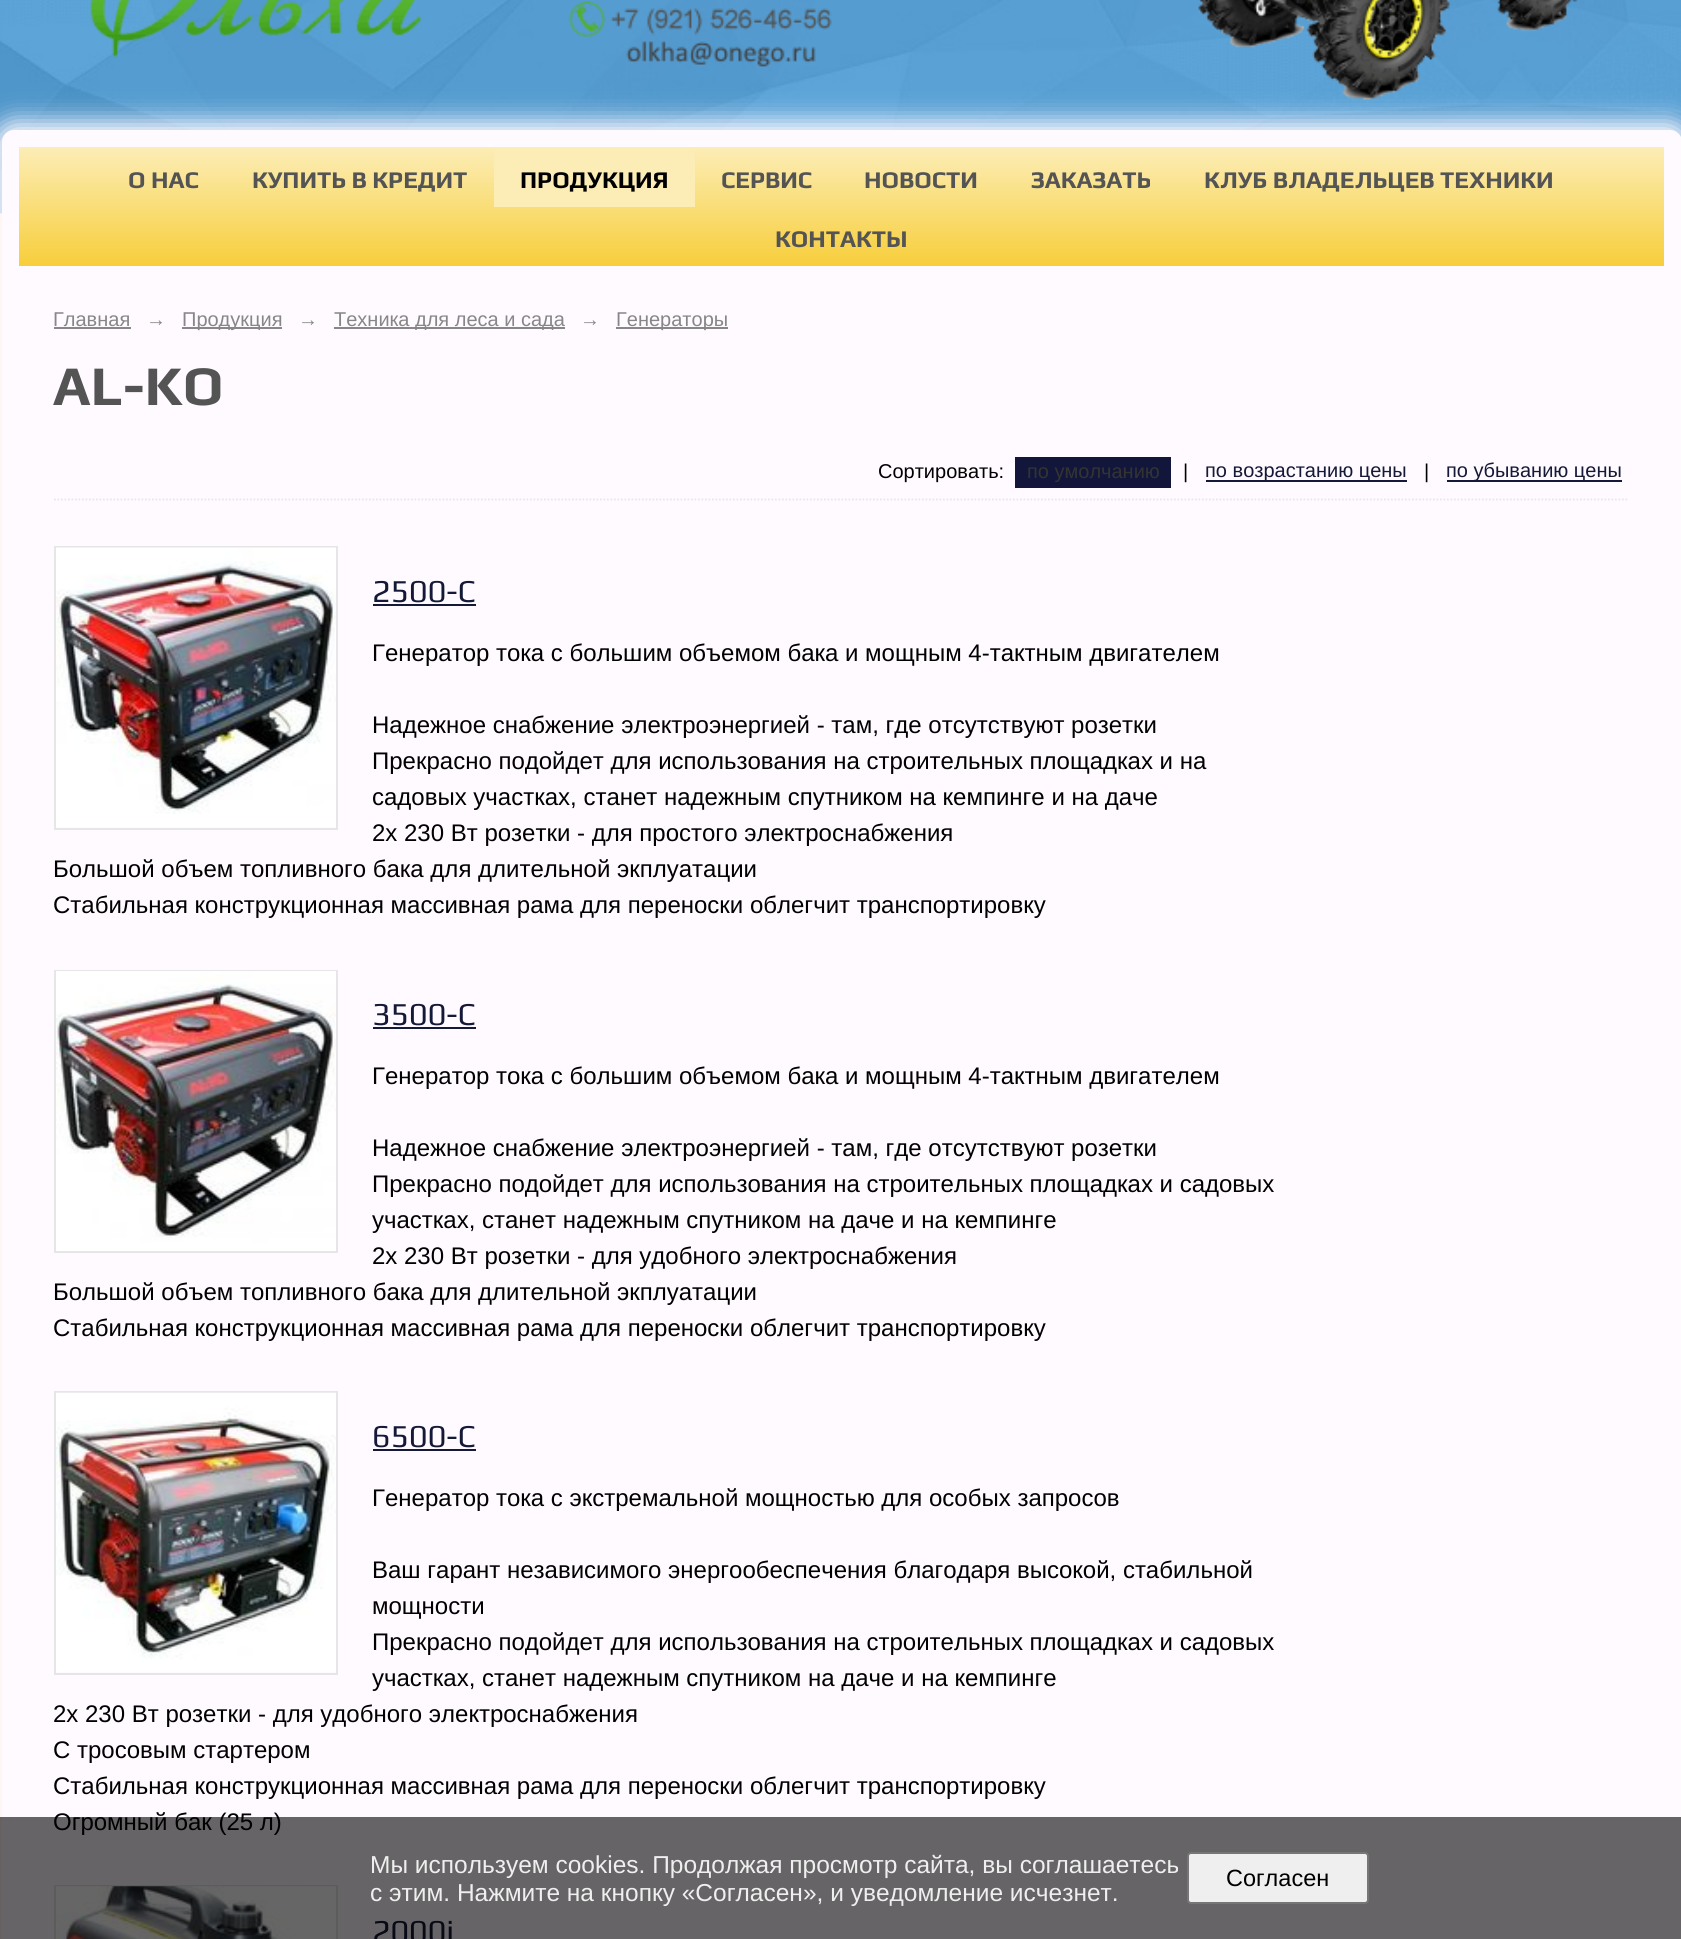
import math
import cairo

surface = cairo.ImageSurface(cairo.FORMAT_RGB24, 1681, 1939)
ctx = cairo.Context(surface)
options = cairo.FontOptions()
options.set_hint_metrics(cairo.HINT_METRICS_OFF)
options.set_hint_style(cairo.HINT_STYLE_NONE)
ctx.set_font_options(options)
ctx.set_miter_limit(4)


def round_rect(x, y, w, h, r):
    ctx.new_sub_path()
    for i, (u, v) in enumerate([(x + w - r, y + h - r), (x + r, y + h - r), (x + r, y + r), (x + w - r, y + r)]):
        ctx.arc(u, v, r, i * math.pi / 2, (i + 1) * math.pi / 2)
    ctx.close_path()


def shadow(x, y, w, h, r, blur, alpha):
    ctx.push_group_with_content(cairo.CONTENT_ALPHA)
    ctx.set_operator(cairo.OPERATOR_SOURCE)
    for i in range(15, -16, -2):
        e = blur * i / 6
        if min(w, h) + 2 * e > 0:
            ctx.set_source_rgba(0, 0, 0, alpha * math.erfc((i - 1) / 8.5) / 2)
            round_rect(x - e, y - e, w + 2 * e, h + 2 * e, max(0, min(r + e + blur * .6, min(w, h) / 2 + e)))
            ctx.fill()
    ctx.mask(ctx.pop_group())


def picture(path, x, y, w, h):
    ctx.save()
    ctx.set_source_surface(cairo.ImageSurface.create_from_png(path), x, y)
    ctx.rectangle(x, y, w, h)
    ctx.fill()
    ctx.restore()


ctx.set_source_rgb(1, 1, 1)
ctx.paint()
picture("img1.png", 0, 0, 1681, 1939)
ctx.set_source_rgb(1, 0.98, 1)
shadow(-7, 121, 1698, 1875, 21, 12, 1)
picture("img2.png", 90, 0, 1489, 100)
ctx.set_source_rgb(1, 0.98, 1)
round_rect(2, 130, 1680, 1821, 12)
ctx.fill()
gradient = cairo.LinearGradient(842, 147, 842, 266)
gradient.add_color_stop_rgba(0, 0.988, 0.929, 0.714, 1)
gradient.add_color_stop_rgba(1, 0.969, 0.808, 0.231, 1)
ctx.set_source(gradient)
ctx.rectangle(19, 147, 1645, 119)
ctx.fill()
ctx.select_font_face("Play", cairo.FONT_SLANT_NORMAL, cairo.FONT_WEIGHT_BOLD)
ctx.set_font_size(24)
ctx.set_source_rgb(0.329, 0.329, 0.329)
ctx.move_to(128, 188)
ctx.show_text("О НАС")
ctx.move_to(252, 188)
ctx.show_text("КУПИТЬ В КРЕДИТ")
ctx.set_source_rgb(0.988, 0.929, 0.714)
ctx.rectangle(494, 149, 201, 58)
ctx.fill()
ctx.set_source_rgb(0, 0, 0)
ctx.move_to(520, 188)
ctx.show_text("ПРОДУКЦИЯ")
ctx.set_source_rgb(0.329, 0.329, 0.329)
ctx.move_to(721, 188)
ctx.show_text("СЕРВИС")
ctx.move_to(864, 188)
ctx.show_text("НОВОСТИ")
ctx.move_to(1031, 188)
ctx.show_text("ЗАКАЗАТЬ")
ctx.move_to(1204, 188)
ctx.show_text("КЛУБ ВЛАДЕЛЬЦЕВ ТЕХНИКИ")
ctx.move_to(775, 247)
ctx.show_text("КОНТАКТЫ")
ctx.select_font_face("Liberation Sans")
ctx.set_font_size(20)
ctx.set_source_rgb(0.529, 0.529, 0.529)
ctx.move_to(53, 326)
ctx.show_text("Главная")
ctx.rectangle(54, 327, 77, 2)
ctx.fill()
ctx.select_font_face("Liberation Sans", cairo.FONT_SLANT_ITALIC)
ctx.move_to(146, 326)
ctx.show_text("→")
ctx.rectangle(182, 327, 100, 2)
ctx.fill()
ctx.select_font_face("Liberation Sans")
ctx.move_to(182, 326)
ctx.show_text("Продукция")
ctx.select_font_face("Liberation Sans", cairo.FONT_SLANT_ITALIC)
ctx.move_to(298, 326)
ctx.show_text("→")
ctx.rectangle(334, 327, 231, 2)
ctx.fill()
ctx.select_font_face("Liberation Sans")
ctx.move_to(334, 326)
ctx.show_text("Техника для леса и сада")
ctx.select_font_face("Liberation Sans", cairo.FONT_SLANT_ITALIC)
ctx.move_to(580, 326)
ctx.show_text("→")
ctx.rectangle(616, 327, 112, 2)
ctx.fill()
ctx.select_font_face("Liberation Sans")
ctx.move_to(616, 326)
ctx.show_text("Генераторы")
ctx.select_font_face("Play", cairo.FONT_SLANT_NORMAL, cairo.FONT_WEIGHT_BOLD)
ctx.set_font_size(56)
ctx.set_source_rgb(0.329, 0.329, 0.329)
ctx.move_to(53, 405)
ctx.show_text("AL-KO")
ctx.new_path()
ctx.move_to(54, 499.5)
ctx.line_to(1629, 499.5)
ctx.set_source_rgb(0.902, 0.902, 0.902)
ctx.set_line_width(1.8)
ctx.set_dash([1.75, 1.75])
ctx.stroke()
ctx.select_font_face("Liberation Sans")
ctx.set_font_size(20)
ctx.set_source_rgb(0, 0, 0)
ctx.move_to(878, 478)
ctx.show_text("Сортировать:")
ctx.set_source_rgb(0.071, 0.086, 0.231)
ctx.rectangle(1015, 457, 156, 31)
ctx.fill()
ctx.set_source_rgb(0.2, 0.2, 0.2)
ctx.move_to(1027, 478)
ctx.show_text("по умолчанию")
ctx.set_source_rgb(0, 0, 0)
ctx.move_to(1183, 478)
ctx.show_text("|")
ctx.set_source_rgb(0.082, 0.098, 0.216)
ctx.rectangle(1206, 480, 201, 2)
ctx.fill()
ctx.move_to(1205, 477)
ctx.show_text("по возрастанию цены")
ctx.set_source_rgb(0, 0, 0)
ctx.move_to(1424, 478)
ctx.show_text("|")
ctx.set_source_rgb(0.082, 0.098, 0.216)
ctx.rectangle(1447, 480, 175, 2)
ctx.fill()
ctx.move_to(1446, 477)
ctx.show_text("по убыванию цены")
ctx.rectangle(55, 547, 282, 282)
ctx.set_source_rgb(0.902, 0.902, 0.902)
ctx.set_line_width(2)
ctx.set_dash([])
ctx.stroke()
picture("img3.png", 56, 547, 280, 280)
ctx.select_font_face("Play")
ctx.set_font_size(32)
ctx.set_source_rgb(0.082, 0.098, 0.216)
ctx.move_to(372, 602)
ctx.show_text("2500-C")
ctx.rectangle(373, 604, 103, 2)
ctx.fill()
ctx.select_font_face("Liberation Sans")
ctx.set_font_size(24)
ctx.set_source_rgb(0, 0, 0)
ctx.move_to(372, 661)
ctx.show_text("Генератор тока с большим объемом бака и мощным 4-тактным двигателем")
ctx.move_to(372, 733)
ctx.show_text("Надежное снабжение электроэнергией - там, где отсутствуют розетки")
ctx.move_to(372, 769)
ctx.show_text("Прекрасно подойдет для использования на строительных площадках и на")
ctx.move_to(372, 805)
ctx.show_text("садовых участках, станет надежным спутником на кемпинге и на даче")
ctx.move_to(372, 841)
ctx.show_text("2x 230 Вт розетки - для простого электроснабжения")
ctx.move_to(53, 877)
ctx.show_text("Большой объем топливного бака для длительной экплуатации")
ctx.move_to(53, 913)
ctx.show_text("Стабильная конструкционная массивная рама для переноски облегчит транспортировку")
ctx.rectangle(55, 971, 282, 281)
ctx.set_source_rgb(0.902, 0.902, 0.902)
ctx.stroke()
picture("img4.png", 56, 971, 280, 280)
ctx.select_font_face("Play")
ctx.set_font_size(32)
ctx.set_source_rgb(0.082, 0.098, 0.216)
ctx.move_to(372, 1025)
ctx.show_text("3500-C")
ctx.rectangle(373, 1027, 103, 2)
ctx.fill()
ctx.select_font_face("Liberation Sans")
ctx.set_font_size(24)
ctx.set_source_rgb(0, 0, 0)
ctx.move_to(372, 1084)
ctx.show_text("Генератор тока с большим объемом бака и мощным 4-тактным двигателем")
ctx.move_to(372, 1156)
ctx.show_text("Надежное снабжение электроэнергией - там, где отсутствуют розетки")
ctx.move_to(372, 1192)
ctx.show_text("Прекрасно подойдет для использования на строительных площадках и садовых")
ctx.move_to(372, 1228)
ctx.show_text("участках, станет надежным спутником на даче и на кемпинге")
ctx.move_to(372, 1264)
ctx.show_text("2x 230 Вт розетки - для удобного электроснабжения")
ctx.move_to(53, 1300)
ctx.show_text("Большой объем топливного бака для длительной экплуатации")
ctx.move_to(53, 1336)
ctx.show_text("Стабильная конструкционная массивная рама для переноски облегчит транспортировку")
ctx.rectangle(55, 1392, 282, 282)
ctx.set_source_rgb(0.902, 0.902, 0.902)
ctx.stroke()
picture("img5.png", 56, 1392, 280, 280)
ctx.select_font_face("Play")
ctx.set_font_size(32)
ctx.set_source_rgb(0.082, 0.098, 0.216)
ctx.move_to(372, 1447)
ctx.show_text("6500-C")
ctx.rectangle(373, 1449, 103, 2)
ctx.fill()
ctx.select_font_face("Liberation Sans")
ctx.set_font_size(24)
ctx.set_source_rgb(0, 0, 0)
ctx.move_to(372, 1506)
ctx.show_text("Генератор тока с экстремальной мощностью для особых запросов")
ctx.move_to(372, 1578)
ctx.show_text("Ваш гарант независимого энергообеспечения благодаря высокой, стабильной")
ctx.move_to(372, 1614)
ctx.show_text("мощности")
ctx.move_to(372, 1650)
ctx.show_text("Прекрасно подойдет для использования на строительных площадках и садовых")
ctx.move_to(372, 1686)
ctx.show_text("участках, станет надежным спутником на даче и на кемпинге")
ctx.move_to(53, 1722)
ctx.show_text("2x 230 Вт розетки - для удобного электроснабжения")
ctx.move_to(53, 1758)
ctx.show_text("С тросовым стартером")
ctx.move_to(53, 1794)
ctx.show_text("Стабильная конструкционная массивная рама для переноски облегчит транспортировку")
ctx.move_to(53, 1830)
ctx.show_text("Огромный бак (25 л)")
ctx.rectangle(55, 1886, 282, 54)
ctx.set_source_rgb(0.902, 0.902, 0.902)
ctx.stroke()
picture("img6.png", 56, 1886, 280, 53)
ctx.select_font_face("Play")
ctx.set_font_size(32)
ctx.set_source_rgb(0.082, 0.098, 0.216)
ctx.move_to(372, 1942)
ctx.show_text("2000i")
ctx.set_source_rgba(0, 0, 0, 0.6)
ctx.rectangle(0, 1817, 1681, 122)
ctx.fill()
ctx.select_font_face("Liberation Sans")
ctx.set_font_size(24.5)
ctx.set_source_rgb(0.937, 0.937, 0.937)
ctx.move_to(370, 1873)
ctx.show_text("Мы используем cookies. Продолжая просмотр сайта, вы соглашаетесь")
ctx.move_to(370, 1901)
ctx.show_text("с этим. Нажмите на кнопку «Согласен», и уведомление исчезнет.")
round_rect(1188, 1853, 180, 50, 3)
ctx.fill_preserve()
ctx.set_source_rgb(0.463, 0.463, 0.463)
ctx.stroke()
ctx.set_font_size(23.5)
ctx.set_source_rgb(0, 0, 0)
ctx.move_to(1226, 1886)
ctx.show_text("Согласен")
surface.write_to_png("page.png")
